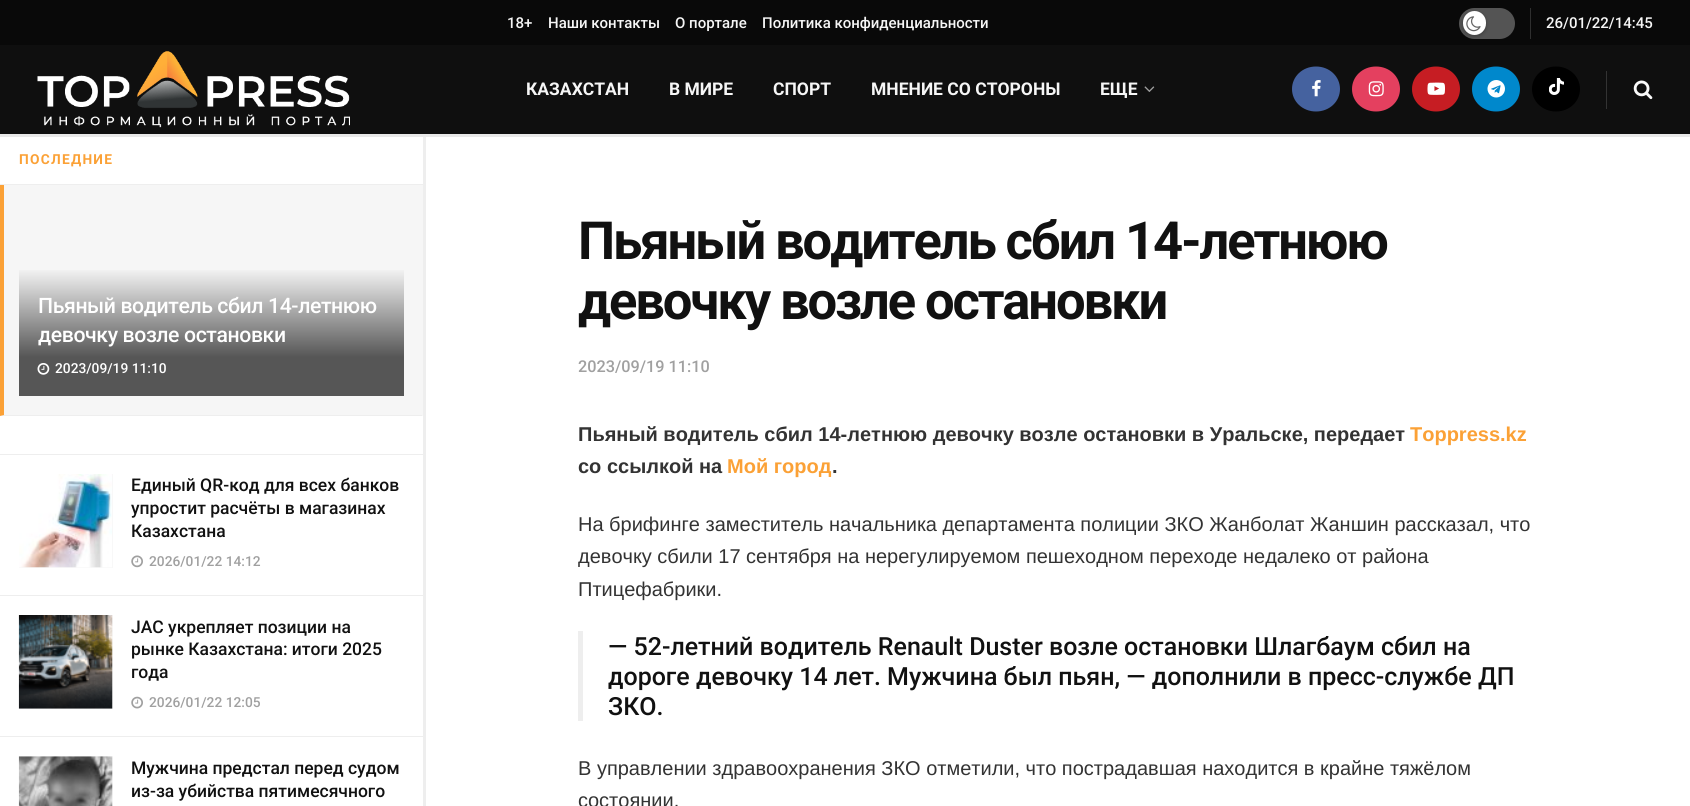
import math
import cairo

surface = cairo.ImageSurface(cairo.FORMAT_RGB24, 1690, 806)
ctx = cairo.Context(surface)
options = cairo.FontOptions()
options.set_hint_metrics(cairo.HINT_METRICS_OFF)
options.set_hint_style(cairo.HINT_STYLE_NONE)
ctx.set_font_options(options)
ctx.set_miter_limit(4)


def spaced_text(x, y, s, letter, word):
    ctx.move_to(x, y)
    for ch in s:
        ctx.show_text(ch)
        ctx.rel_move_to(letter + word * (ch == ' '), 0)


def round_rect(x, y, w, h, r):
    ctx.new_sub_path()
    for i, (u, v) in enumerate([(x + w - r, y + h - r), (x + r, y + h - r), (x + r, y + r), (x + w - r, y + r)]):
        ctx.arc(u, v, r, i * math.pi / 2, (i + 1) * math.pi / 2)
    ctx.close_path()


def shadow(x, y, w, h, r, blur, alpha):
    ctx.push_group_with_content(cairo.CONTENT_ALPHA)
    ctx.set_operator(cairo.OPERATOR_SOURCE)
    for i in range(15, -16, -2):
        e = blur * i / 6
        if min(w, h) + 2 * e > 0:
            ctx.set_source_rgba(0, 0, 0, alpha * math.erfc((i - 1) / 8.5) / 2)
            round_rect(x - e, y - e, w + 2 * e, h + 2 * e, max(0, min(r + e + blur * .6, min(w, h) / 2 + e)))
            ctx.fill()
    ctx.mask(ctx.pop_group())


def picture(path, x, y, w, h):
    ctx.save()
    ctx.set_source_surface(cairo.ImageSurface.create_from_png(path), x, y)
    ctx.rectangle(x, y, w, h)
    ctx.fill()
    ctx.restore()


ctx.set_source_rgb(1, 1, 1)
ctx.paint()
ctx.set_source_rgb(0.933, 0.933, 0.933)
ctx.rectangle(423, 136, 3, 670)
ctx.fill()
ctx.rectangle(0, 184, 423, 1)
ctx.fill()
ctx.select_font_face("Roboto", cairo.FONT_SLANT_NORMAL, cairo.FONT_WEIGHT_BOLD)
ctx.set_font_size(13.75)
ctx.set_source_rgb(0.984, 0.631, 0.212)
spaced_text(19, 164, "ПОСЛЕДНИЕ", 1.25, 0)
ctx.set_source_rgb(0.961, 0.961, 0.961)
ctx.rectangle(0, 185, 423, 231)
ctx.fill()
ctx.set_source_rgb(0.933, 0.933, 0.933)
ctx.new_path()
ctx.move_to(422, 416)
ctx.line_to(0, 416)
ctx.line_to(4, 415)
ctx.line_to(422, 415)
ctx.close_path()
ctx.fill()
ctx.set_source_rgb(0.984, 0.631, 0.212)
ctx.new_path()
ctx.move_to(0, 416)
ctx.line_to(0, 185)
ctx.line_to(4, 185)
ctx.line_to(4, 415)
ctx.close_path()
ctx.fill()
gradient = cairo.LinearGradient(211, 267, 211, 396)
gradient.add_color_stop_rgba(0, 0.969, 0.969, 0.969, 1)
gradient.add_color_stop_rgba(0.7, 0.337, 0.337, 0.337, 1)
ctx.set_source(gradient)
ctx.rectangle(19, 270, 385, 126)
ctx.fill()
ctx.select_font_face("Roboto Medium")
ctx.set_font_size(21.25)
ctx.set_source_rgb(1, 1, 1)
spaced_text(38, 313, "Пьяный водитель сбил 14-летнюю", -0.4, 0)
spaced_text(38, 342, "девочку возле остановки", -0.4, 0)
picture("img1.png", 37, 363, 13, 12)
ctx.set_font_size(13.75)
ctx.move_to(55, 373)
ctx.show_text("2023/09/19 11:10")
ctx.set_source_rgb(0.933, 0.933, 0.933)
ctx.rectangle(0, 454, 423, 1)
ctx.fill()
ctx.rectangle(0, 595, 423, 1)
ctx.fill()
ctx.set_source_rgb(0.969, 0.969, 0.969)
ctx.rectangle(19, 474, 94, 94)
ctx.fill()
picture("img2.png", 19, 474, 93, 94)
ctx.set_font_size(17.5)
ctx.set_source_rgb(0.067, 0.067, 0.067)
ctx.move_to(131, 491)
ctx.show_text("Единый QR-код для всех банков")
ctx.move_to(131, 514)
ctx.show_text("упростит расчёты в магазинах")
ctx.move_to(131, 537)
ctx.show_text("Казахстана")
picture("img3.png", 131, 555, 12, 13)
ctx.set_font_size(13.75)
ctx.set_source_rgb(0.627, 0.627, 0.627)
ctx.move_to(149, 566)
ctx.show_text("2026/01/22 14:12")
ctx.set_source_rgb(0.933, 0.933, 0.933)
ctx.rectangle(0, 736, 423, 1)
ctx.fill()
ctx.set_source_rgb(0.969, 0.969, 0.969)
ctx.rectangle(19, 615, 94, 94)
ctx.fill()
picture("img4.png", 18, 615, 95, 94)
ctx.set_font_size(17.5)
ctx.set_source_rgb(0.067, 0.067, 0.067)
ctx.move_to(131, 633)
ctx.show_text("JAC укрепляет позиции на")
ctx.move_to(131, 655)
ctx.show_text("рынке Казахстана: итоги 2025")
ctx.move_to(131, 678)
ctx.show_text("года")
picture("img5.png", 131, 696, 12, 13)
ctx.set_font_size(13.75)
ctx.set_source_rgb(0.627, 0.627, 0.627)
ctx.move_to(149, 707)
ctx.show_text("2026/01/22 12:05")
ctx.set_source_rgb(0.969, 0.969, 0.969)
ctx.rectangle(19, 756, 94, 50)
ctx.fill()
picture("img6.png", 18, 756, 95, 50)
ctx.set_font_size(17.5)
ctx.set_source_rgb(0.067, 0.067, 0.067)
ctx.move_to(131, 774)
ctx.show_text("Мужчина предстал перед судом")
ctx.move_to(131, 797)
ctx.show_text("из-за убийства пятимесячного")
ctx.set_source_rgb(0.039, 0.039, 0.039)
ctx.rectangle(0, 0, 1690, 45)
ctx.fill()
ctx.set_font_size(15)
ctx.set_source_rgb(0.961, 0.961, 0.961)
ctx.move_to(507, 28)
ctx.show_text("18+")
ctx.move_to(548, 28)
ctx.show_text("Наши контакты")
ctx.move_to(675, 28)
ctx.show_text("О портале")
ctx.move_to(762, 28)
ctx.show_text("Политика конфиденциальности")
ctx.set_source_rgb(0.184, 0.184, 0.184)
ctx.rectangle(1530, 8, 1, 31)
ctx.fill()
ctx.set_source_rgb(0.329, 0.329, 0.329)
round_rect(1459, 8, 56, 31, 15.5)
ctx.fill()
ctx.set_source_rgb(0, 0, 0)
shadow(1463, 13, 23, 23, 11.5, 2, 0.3)
ctx.set_source_rgb(1, 1, 1)
round_rect(1463, 11, 23, 24, 11.5)
ctx.fill()
picture("img7.png", 1466, 16, 15, 16)
ctx.set_source_rgb(0.961, 0.961, 0.961)
ctx.move_to(1546, 28)
ctx.show_text("26/01/22/14:45")
ctx.set_source_rgb(0.059, 0.059, 0.059)
ctx.rectangle(0, 45, 1690, 89)
ctx.fill()
ctx.set_source_rgb(0.91, 0.91, 0.91)
ctx.rectangle(0, 134, 1690, 3)
ctx.fill()
picture("img8.png", 37, 51, 313, 77)
ctx.select_font_face("Roboto", cairo.FONT_SLANT_NORMAL, cairo.FONT_WEIGHT_BOLD)
ctx.set_font_size(17.5)
ctx.set_source_rgb(0.961, 0.961, 0.961)
ctx.move_to(526, 95)
ctx.show_text("КАЗАХСТАН")
ctx.move_to(669, 95)
ctx.show_text("В МИРЕ")
ctx.move_to(773, 95)
ctx.show_text("СПОРТ")
ctx.move_to(871, 95)
ctx.show_text("МНЕНИЕ СО СТОРОНЫ")
ctx.move_to(1100, 95)
ctx.show_text("ЕЩЕ")
picture("img9.png", 1144, 86, 11, 6)
ctx.set_source_rgb(0.271, 0.384, 0.624)
ctx.new_path()
ctx.move_to(1316, 66.5)
ctx.curve_to(1329.5, 66.5, 1340, 76.5, 1340, 89)
ctx.curve_to(1340, 101.5, 1329.5, 111.5, 1316, 111.5)
ctx.curve_to(1302.5, 111.5, 1292, 101.5, 1292, 89)
ctx.curve_to(1292, 76.5, 1302.5, 66.5, 1316, 66.5)
ctx.close_path()
ctx.fill()
picture("img10.png", 1312, 80, 9, 17)
ctx.set_source_rgb(0.894, 0.251, 0.373)
ctx.new_path()
ctx.move_to(1376, 66.5)
ctx.curve_to(1389.5, 66.5, 1400, 76.5, 1400, 89)
ctx.curve_to(1400, 101.5, 1389.5, 111.5, 1376, 111.5)
ctx.curve_to(1362.5, 111.5, 1352, 101.5, 1352, 89)
ctx.curve_to(1352, 76.5, 1362.5, 66.5, 1376, 66.5)
ctx.close_path()
ctx.fill()
picture("img11.png", 1368, 81, 16, 16)
ctx.set_source_rgb(0.776, 0.114, 0.137)
ctx.new_path()
ctx.move_to(1436, 66.5)
ctx.curve_to(1449.5, 66.5, 1460, 76.5, 1460, 89)
ctx.curve_to(1460, 101.5, 1449.5, 111.5, 1436, 111.5)
ctx.curve_to(1422.5, 111.5, 1412, 101.5, 1412, 89)
ctx.curve_to(1412, 76.5, 1422.5, 66.5, 1436, 66.5)
ctx.close_path()
ctx.fill()
picture("img12.png", 1427, 82, 18, 13)
ctx.set_source_rgb(0, 0.533, 0.8)
ctx.new_path()
ctx.move_to(1496, 66.5)
ctx.curve_to(1509.5, 66.5, 1520, 76.5, 1520, 89)
ctx.curve_to(1520, 101.5, 1509.5, 111.5, 1496, 111.5)
ctx.curve_to(1482.5, 111.5, 1472, 101.5, 1472, 89)
ctx.curve_to(1472, 76.5, 1482.5, 66.5, 1496, 66.5)
ctx.close_path()
ctx.fill()
picture("img13.png", 1487, 80, 18, 18)
ctx.set_source_rgb(0, 0, 0)
ctx.new_path()
ctx.move_to(1556, 66.5)
ctx.curve_to(1569.5, 66.5, 1580, 76.5, 1580, 89)
ctx.curve_to(1580, 101.5, 1569.5, 111.5, 1556, 111.5)
ctx.curve_to(1542.5, 111.5, 1532, 101.5, 1532, 89)
ctx.curve_to(1532, 76.5, 1542.5, 66.5, 1556, 66.5)
ctx.close_path()
ctx.fill()
picture("img14.png", 1549, 78, 15, 17)
ctx.set_source_rgb(0.2, 0.2, 0.2)
ctx.rectangle(1606, 71, 1, 38)
ctx.fill()
picture("img15.png", 1633, 80, 20, 20)
ctx.set_font_size(52.5)
ctx.set_source_rgb(0.067, 0.067, 0.067)
spaced_text(578, 259, "Пьяный водитель сбил 14-летнюю", -2.1, 0)
spaced_text(578, 319, "девочку возле остановки", -2.1, 0)
ctx.select_font_face("Roboto Medium")
ctx.set_font_size(16.25)
ctx.set_source_rgb(0.627, 0.627, 0.627)
ctx.move_to(578, 372)
ctx.show_text("2023/09/19 11:10")
ctx.select_font_face("Liberation Sans", cairo.FONT_SLANT_NORMAL, cairo.FONT_WEIGHT_BOLD)
ctx.set_font_size(20)
ctx.set_source_rgb(0.2, 0.2, 0.2)
ctx.move_to(578, 441)
ctx.show_text("Пьяный водитель сбил 14-летнюю девочку возле остановки в Уральске, передает")
ctx.set_source_rgb(0.984, 0.631, 0.212)
ctx.move_to(1410, 441)
ctx.show_text("Toppress.kz")
ctx.set_source_rgb(0.2, 0.2, 0.2)
ctx.move_to(578, 473)
ctx.show_text("со ссылкой на")
ctx.set_source_rgb(0.984, 0.631, 0.212)
ctx.move_to(727, 473)
ctx.show_text("Мой город")
ctx.set_source_rgb(0.2, 0.2, 0.2)
ctx.move_to(832, 473)
ctx.show_text(".")
ctx.select_font_face("Liberation Sans")
ctx.move_to(578, 531)
ctx.show_text("На брифинге заместитель начальника департамента полиции ЗКО Жанболат Жаншин рассказал, что")
ctx.move_to(578, 563)
ctx.show_text("девочку сбили 17 сентября на нерегулируемом пешеходном переходе недалеко от района")
ctx.move_to(578, 596)
ctx.show_text("Птицефабрики.")
ctx.set_source_rgb(0.933, 0.933, 0.933)
ctx.rectangle(578, 631, 5, 90)
ctx.fill()
ctx.select_font_face("Roboto Medium")
ctx.set_font_size(25)
ctx.set_source_rgb(0.067, 0.067, 0.067)
ctx.move_to(608, 655)
ctx.show_text("— 52-летний водитель Renault Duster возле остановки Шлагбаум сбил на")
ctx.move_to(608, 685)
ctx.show_text("дороге девочку 14 лет. Мужчина был пьян, — дополнили в пресс-службе ДП")
ctx.move_to(608, 715)
ctx.show_text("ЗКО.")
ctx.select_font_face("Liberation Sans")
ctx.set_font_size(20)
ctx.set_source_rgb(0.2, 0.2, 0.2)
ctx.move_to(578, 775)
ctx.show_text("В управлении здравоохранения ЗКО отметили, что пострадавшая находится в крайне тяжёлом")
ctx.move_to(578, 807)
ctx.show_text("состоянии.")
surface.write_to_png("page.png")
